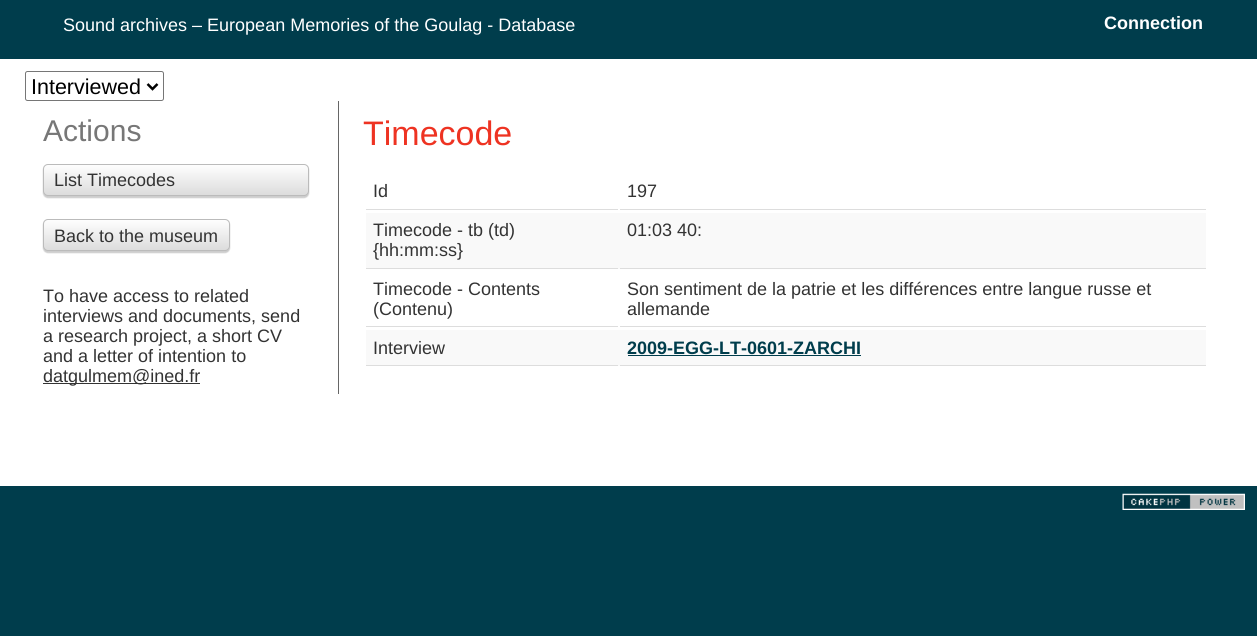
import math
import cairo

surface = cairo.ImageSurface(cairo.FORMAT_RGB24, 1257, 636)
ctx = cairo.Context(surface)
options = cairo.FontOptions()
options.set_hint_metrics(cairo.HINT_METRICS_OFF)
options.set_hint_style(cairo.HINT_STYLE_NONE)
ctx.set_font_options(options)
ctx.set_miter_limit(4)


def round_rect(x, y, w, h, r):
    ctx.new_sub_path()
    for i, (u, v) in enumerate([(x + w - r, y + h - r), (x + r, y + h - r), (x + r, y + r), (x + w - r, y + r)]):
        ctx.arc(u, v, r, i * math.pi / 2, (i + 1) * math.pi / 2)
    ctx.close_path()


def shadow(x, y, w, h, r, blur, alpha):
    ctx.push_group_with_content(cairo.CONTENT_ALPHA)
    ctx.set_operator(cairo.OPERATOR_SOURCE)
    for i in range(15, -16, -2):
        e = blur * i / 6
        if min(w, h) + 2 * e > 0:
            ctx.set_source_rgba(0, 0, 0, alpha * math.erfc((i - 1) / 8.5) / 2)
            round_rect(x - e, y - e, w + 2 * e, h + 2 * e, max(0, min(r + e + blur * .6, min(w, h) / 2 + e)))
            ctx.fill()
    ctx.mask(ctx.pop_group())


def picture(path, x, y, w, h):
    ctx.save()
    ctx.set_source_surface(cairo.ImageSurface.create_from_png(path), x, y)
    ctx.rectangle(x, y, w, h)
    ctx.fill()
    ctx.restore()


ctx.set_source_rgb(0, 0.239, 0.298)
ctx.paint()
ctx.select_font_face("Liberation Sans")
ctx.set_font_size(18)
ctx.set_source_rgb(1, 1, 1)
ctx.move_to(63, 31)
ctx.show_text("Sound archives – European Memories of the Goulag - Database")
ctx.select_font_face("Liberation Sans", cairo.FONT_SLANT_NORMAL, cairo.FONT_WEIGHT_BOLD)
ctx.move_to(1104, 29)
ctx.show_text("Connection")
ctx.rectangle(0, 59, 1257, 427)
ctx.fill()
round_rect(25.5, 71.5, 138, 29, 2)
ctx.set_source_rgb(0.463, 0.463, 0.463)
ctx.set_line_width(1)
ctx.stroke()
ctx.new_path()
ctx.move_to(147.5, 84)
ctx.line_to(152.5, 89)
ctx.line_to(157.5, 84)
ctx.set_source_rgb(0, 0, 0)
ctx.set_line_width(2.5)
ctx.stroke()
ctx.select_font_face("Liberation Sans")
ctx.set_font_size(21.5)
ctx.move_to(31, 94)
ctx.show_text("Interviewed")
ctx.set_font_size(30)
ctx.set_source_rgb(0.467, 0.467, 0.467)
ctx.move_to(43, 141)
ctx.show_text("Actions")
ctx.set_source_rgb(0, 0, 0)
shadow(43, 165, 266, 33, 5, 0.5, 0.2)
ctx.save()
round_rect(43, 164, 266, 32, 5)
ctx.clip()
gradient = cairo.LinearGradient(176, 165, 176, 195)
gradient.add_color_stop_rgba(0, 0.996, 0.996, 0.996, 1)
gradient.add_color_stop_rgba(1, 0.863, 0.863, 0.863, 1)
ctx.set_source(gradient)
ctx.rectangle(43, 165, 266, 30)
ctx.fill()
ctx.restore()
round_rect(43.5, 164.5, 265, 31, 4.5)
ctx.set_source_rgb(0.733, 0.733, 0.733)
ctx.set_line_width(1)
ctx.stroke()
ctx.set_font_size(18)
ctx.set_source_rgb(0.2, 0.2, 0.2)
ctx.move_to(54, 186)
ctx.show_text("List Timecodes")
ctx.set_source_rgb(0, 0, 0)
shadow(43, 220, 187, 33, 5, 0.5, 0.2)
ctx.save()
round_rect(43, 219, 187, 32, 5)
ctx.clip()
gradient = cairo.LinearGradient(136, 220, 136, 250)
gradient.add_color_stop_rgba(0, 0.996, 0.996, 0.996, 1)
gradient.add_color_stop_rgba(1, 0.863, 0.863, 0.863, 1)
ctx.set_source(gradient)
ctx.rectangle(43, 220, 187, 30)
ctx.fill()
ctx.restore()
round_rect(43.5, 219.5, 186, 31, 4.5)
ctx.set_source_rgb(0.733, 0.733, 0.733)
ctx.stroke()
ctx.set_source_rgb(0.2, 0.2, 0.2)
ctx.move_to(54, 242)
ctx.show_text("Back to the museum")
ctx.move_to(43, 302)
ctx.show_text("To have access to related")
ctx.move_to(43, 322)
ctx.show_text("interviews and documents, send")
ctx.move_to(43, 342)
ctx.show_text("a research project, a short CV")
ctx.move_to(43, 362)
ctx.show_text("and a letter of intention to")
ctx.rectangle(43, 383, 157, 1)
ctx.fill()
ctx.move_to(43, 382)
ctx.show_text("datgulmem@ined.fr")
ctx.set_source_rgb(0.4, 0.4, 0.4)
ctx.rectangle(338, 101, 1, 293)
ctx.fill()
ctx.set_font_size(34)
ctx.set_source_rgb(0.933, 0.2, 0.133)
ctx.move_to(363, 145)
ctx.show_text("Timecode")
ctx.set_source_rgb(0.867, 0.867, 0.867)
ctx.rectangle(366, 209, 252, 1)
ctx.fill()
ctx.set_font_size(18)
ctx.set_source_rgb(0.2, 0.2, 0.2)
ctx.move_to(373, 197)
ctx.show_text("Id")
ctx.set_source_rgb(0.867, 0.867, 0.867)
ctx.rectangle(620, 209, 586, 1)
ctx.fill()
ctx.set_source_rgb(0.2, 0.2, 0.2)
ctx.move_to(627, 197)
ctx.show_text("197")
ctx.set_source_rgb(0.976, 0.976, 0.976)
ctx.rectangle(366, 213, 840, 56)
ctx.fill()
ctx.set_source_rgb(0.867, 0.867, 0.867)
ctx.rectangle(366, 268, 252, 1)
ctx.fill()
ctx.set_source_rgb(0.2, 0.2, 0.2)
ctx.move_to(373, 236)
ctx.show_text("Timecode - tb (td)")
ctx.move_to(373, 256)
ctx.show_text("{hh:mm:ss}")
ctx.set_source_rgb(0.867, 0.867, 0.867)
ctx.rectangle(620, 268, 586, 1)
ctx.fill()
ctx.set_source_rgb(0.2, 0.2, 0.2)
ctx.move_to(627, 236)
ctx.show_text("01:03 40:")
ctx.set_source_rgb(0.867, 0.867, 0.867)
ctx.rectangle(366, 326, 252, 1)
ctx.fill()
ctx.set_source_rgb(0.2, 0.2, 0.2)
ctx.move_to(373, 295)
ctx.show_text("Timecode - Contents")
ctx.move_to(373, 315)
ctx.show_text("(Contenu)")
ctx.set_source_rgb(0.867, 0.867, 0.867)
ctx.rectangle(620, 326, 586, 1)
ctx.fill()
ctx.set_source_rgb(0.2, 0.2, 0.2)
ctx.move_to(627, 295)
ctx.show_text("Son sentiment de la patrie et les différences entre langue russe et")
ctx.move_to(627, 315)
ctx.show_text("allemande")
ctx.set_source_rgb(0.976, 0.976, 0.976)
ctx.rectangle(366, 330, 840, 36)
ctx.fill()
ctx.set_source_rgb(0.867, 0.867, 0.867)
ctx.rectangle(366, 365, 252, 1)
ctx.fill()
ctx.set_source_rgb(0.2, 0.2, 0.2)
ctx.move_to(373, 354)
ctx.show_text("Interview")
ctx.set_source_rgb(0.867, 0.867, 0.867)
ctx.rectangle(620, 365, 586, 1)
ctx.fill()
ctx.select_font_face("Liberation Sans", cairo.FONT_SLANT_NORMAL, cairo.FONT_WEIGHT_BOLD)
ctx.set_source_rgb(0, 0.239, 0.298)
ctx.move_to(627, 354)
ctx.show_text("2009-EGG-LT-0601-ZARCHI")
ctx.rectangle(628, 355, 233, 1)
ctx.fill()
picture("img1.png", 1122, 493, 123, 17)
surface.write_to_png("page.png")
